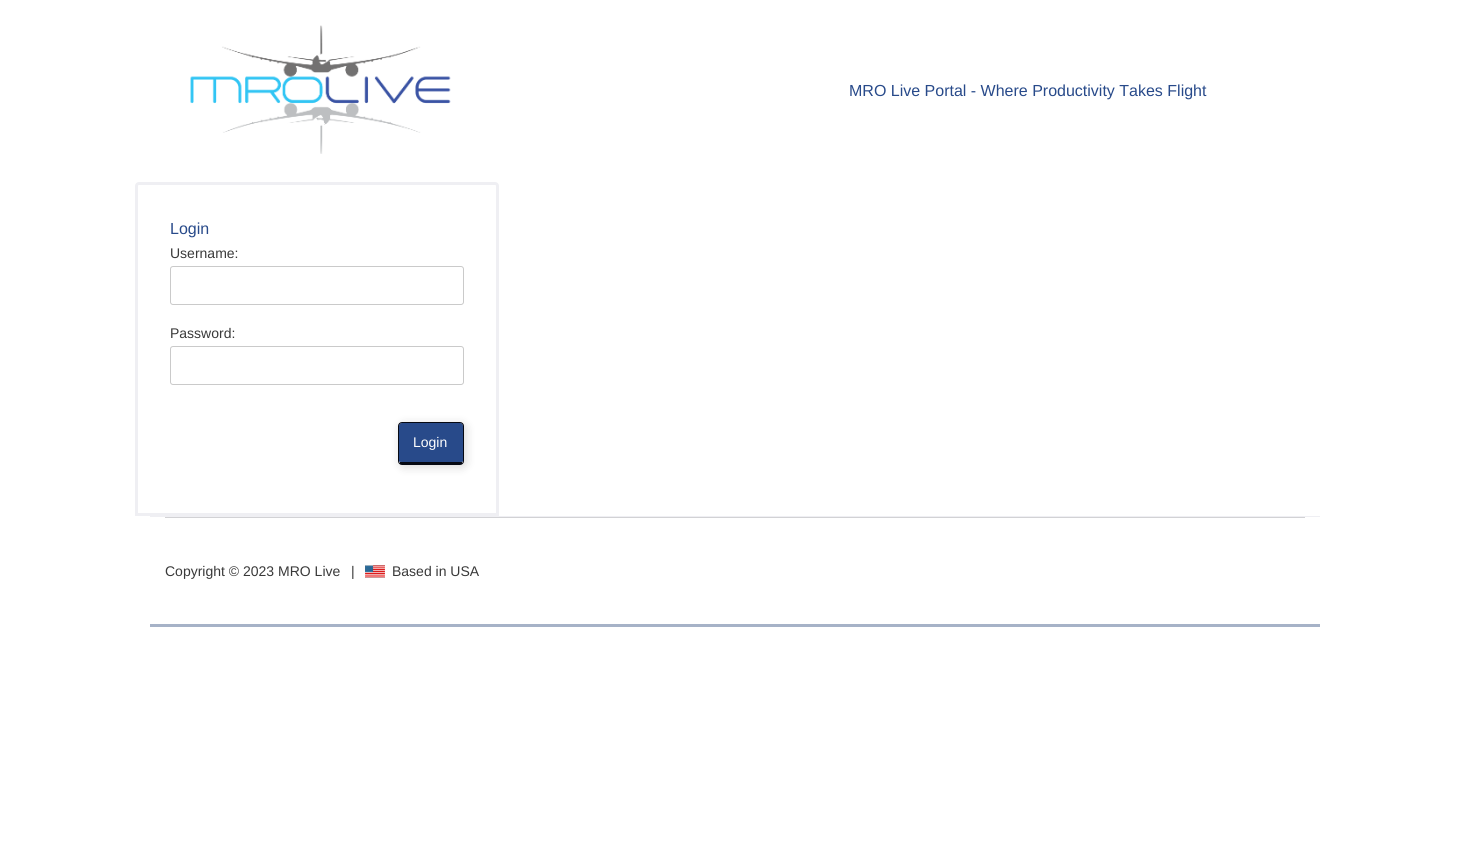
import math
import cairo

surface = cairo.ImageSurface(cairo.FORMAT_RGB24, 1469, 860)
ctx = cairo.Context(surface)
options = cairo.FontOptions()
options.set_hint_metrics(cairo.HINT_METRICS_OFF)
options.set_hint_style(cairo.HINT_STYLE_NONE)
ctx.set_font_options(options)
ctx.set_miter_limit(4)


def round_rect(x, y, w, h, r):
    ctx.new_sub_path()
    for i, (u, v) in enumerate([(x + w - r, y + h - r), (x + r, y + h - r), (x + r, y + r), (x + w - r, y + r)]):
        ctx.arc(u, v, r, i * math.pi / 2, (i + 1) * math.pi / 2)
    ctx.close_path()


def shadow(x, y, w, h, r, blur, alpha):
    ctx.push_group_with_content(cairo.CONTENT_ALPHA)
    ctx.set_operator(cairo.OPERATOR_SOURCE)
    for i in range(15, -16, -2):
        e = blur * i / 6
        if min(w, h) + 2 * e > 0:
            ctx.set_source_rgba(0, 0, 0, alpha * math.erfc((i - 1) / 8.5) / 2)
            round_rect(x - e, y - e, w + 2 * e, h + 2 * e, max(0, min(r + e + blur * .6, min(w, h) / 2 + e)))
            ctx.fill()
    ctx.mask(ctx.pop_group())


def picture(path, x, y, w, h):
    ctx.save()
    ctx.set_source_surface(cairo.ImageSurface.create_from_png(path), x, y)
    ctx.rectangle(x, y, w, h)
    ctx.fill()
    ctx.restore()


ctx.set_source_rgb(1, 1, 1)
ctx.paint()
picture("img1.png", 190, 25, 261, 129)
ctx.select_font_face("Liberation Sans")
ctx.set_font_size(16)
ctx.set_source_rgb(0.157, 0.29, 0.541)
ctx.move_to(849, 96)
ctx.show_text("MRO Live Portal - Where Productivity Takes Flight")
ctx.new_path()
ctx.move_to(139, 183.5)
ctx.line_to(495, 183.5)
ctx.curve_to(496.5, 183.5, 497.5, 184.5, 497.5, 186)
ctx.line_to(497.5, 514.5)
ctx.line_to(136.5, 514.5)
ctx.line_to(136.5, 186)
ctx.curve_to(136.5, 184.5, 137.5, 183.5, 139, 183.5)
ctx.close_path()
ctx.set_source_rgb(0.937, 0.937, 0.953)
ctx.set_line_width(3)
ctx.stroke()
ctx.set_source_rgb(0.157, 0.29, 0.541)
ctx.move_to(170, 234)
ctx.show_text("Login")
ctx.set_font_size(14)
ctx.set_source_rgb(0.224, 0.224, 0.224)
ctx.move_to(170, 258)
ctx.show_text("Username:")
round_rect(170.5, 266.5, 293, 38, 2.5)
ctx.set_source_rgb(0.792, 0.792, 0.792)
ctx.set_line_width(1)
ctx.stroke()
ctx.set_source_rgb(0.224, 0.224, 0.224)
ctx.move_to(170, 338)
ctx.show_text("Password:")
round_rect(170.5, 346.5, 293, 38, 2.5)
ctx.set_source_rgb(0.792, 0.792, 0.792)
ctx.stroke()
ctx.set_source_rgb(0, 0, 0)
shadow(400, 424, 66, 43, 4, 5, 0.15)
ctx.set_source_rgb(0.157, 0.29, 0.541)
ctx.new_path()
ctx.move_to(402, 423)
ctx.line_to(460, 423)
ctx.curve_to(462, 423, 463, 424, 463, 426)
ctx.line_to(463, 461)
ctx.curve_to(463, 462, 462, 462, 460, 462)
ctx.line_to(402, 462)
ctx.curve_to(400, 462, 399, 462, 399, 461)
ctx.line_to(399, 426)
ctx.curve_to(399, 424, 400, 423, 402, 423)
ctx.close_path()
ctx.fill()
round_rect(398.5, 422.5, 65, 42, 3.5)
ctx.set_source_rgb(0.024, 0.039, 0.075)
ctx.stroke()
ctx.rectangle(400, 462, 62, 2)
ctx.fill()
ctx.set_source_rgb(0.996, 0.996, 0.996)
ctx.move_to(413, 447)
ctx.show_text("Login")
ctx.set_source_rgb(0.937, 0.937, 0.953)
ctx.rectangle(150, 516, 1170, 1)
ctx.fill()
ctx.set_source_rgb(0.651, 0.698, 0.78)
ctx.rectangle(150, 624, 1170, 3)
ctx.fill()
ctx.set_source_rgb(0.824, 0.824, 0.835)
ctx.rectangle(165, 517, 1140, 1)
ctx.fill()
ctx.set_source_rgb(0.224, 0.224, 0.224)
ctx.move_to(165, 576)
ctx.show_text("Copyright © 2023 MRO Live")
ctx.move_to(351, 576)
ctx.show_text("|")
picture("img2.png", 365, 565, 20, 13)
ctx.move_to(392, 576)
ctx.show_text("Based in USA")
surface.write_to_png("page.png")
